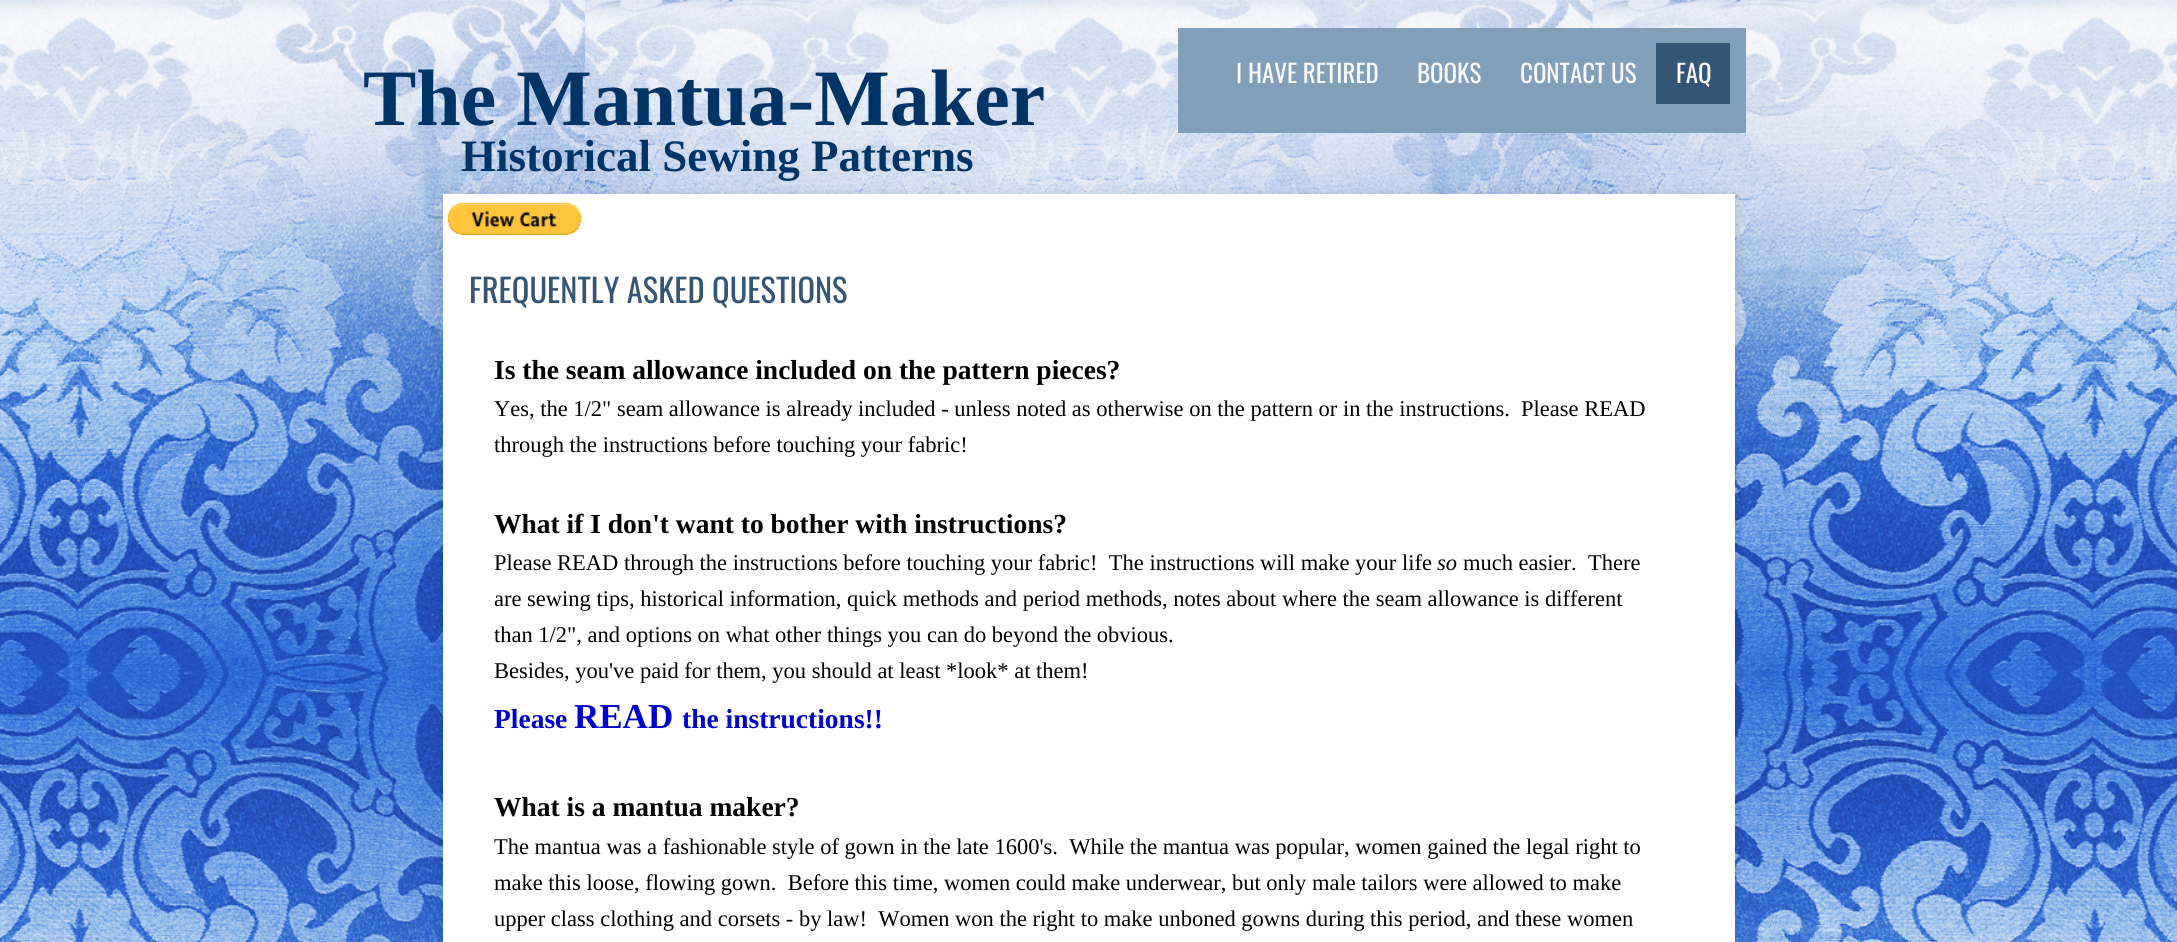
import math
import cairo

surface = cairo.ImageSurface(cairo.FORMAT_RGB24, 2177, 942)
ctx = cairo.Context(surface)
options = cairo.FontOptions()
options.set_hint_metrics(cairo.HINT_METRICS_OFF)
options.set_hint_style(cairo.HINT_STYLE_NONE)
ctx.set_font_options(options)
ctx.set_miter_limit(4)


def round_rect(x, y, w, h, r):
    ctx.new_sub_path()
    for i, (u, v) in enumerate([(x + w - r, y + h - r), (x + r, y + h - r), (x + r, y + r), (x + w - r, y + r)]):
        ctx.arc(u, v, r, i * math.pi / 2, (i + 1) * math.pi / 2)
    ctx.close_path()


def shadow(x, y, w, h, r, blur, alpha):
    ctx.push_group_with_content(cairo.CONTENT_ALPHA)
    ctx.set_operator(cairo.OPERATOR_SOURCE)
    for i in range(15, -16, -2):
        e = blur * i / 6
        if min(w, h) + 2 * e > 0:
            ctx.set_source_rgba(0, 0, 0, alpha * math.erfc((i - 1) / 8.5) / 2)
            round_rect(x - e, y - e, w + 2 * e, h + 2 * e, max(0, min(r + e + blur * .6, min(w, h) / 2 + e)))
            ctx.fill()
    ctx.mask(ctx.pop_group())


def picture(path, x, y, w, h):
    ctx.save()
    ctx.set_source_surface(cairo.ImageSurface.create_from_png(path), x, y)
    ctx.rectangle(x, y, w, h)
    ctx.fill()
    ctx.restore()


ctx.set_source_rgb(1, 1, 1)
ctx.paint()
picture("img1.png", 0, 0, 2177, 942)
ctx.set_source_rgb(0, 0, 0)
shadow(443, 194, 1292, 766, 0, 6, 0.1)
ctx.set_source_rgb(1, 1, 1)
ctx.rectangle(443, 194, 1292, 748)
ctx.fill()
ctx.set_source_rgb(0.506, 0.624, 0.725)
ctx.rectangle(1178, 28, 568, 105)
ctx.fill()
ctx.select_font_face("Liberation Serif", cairo.FONT_SLANT_NORMAL, cairo.FONT_WEIGHT_BOLD)
ctx.set_font_size(80)
ctx.set_source_rgb(0, 0.2, 0.4)
ctx.move_to(363, 125)
ctx.show_text("The Mantua-Maker")
ctx.select_font_face("Oswald")
ctx.set_font_size(25)
ctx.set_source_rgb(0.98, 0.98, 0.98)
ctx.move_to(1236, 83)
ctx.show_text("I HAVE RETIRED")
ctx.move_to(1417, 83)
ctx.show_text("BOOKS")
ctx.move_to(1520, 83)
ctx.show_text("CONTACT US")
ctx.set_source_rgb(0.204, 0.333, 0.451)
ctx.rectangle(1656, 43, 74, 61)
ctx.fill()
ctx.set_source_rgb(0.98, 0.98, 0.98)
ctx.move_to(1676, 83)
ctx.show_text("FAQ")
ctx.select_font_face("Liberation Serif", cairo.FONT_SLANT_NORMAL, cairo.FONT_WEIGHT_BOLD)
ctx.set_font_size(45)
ctx.set_source_rgb(0, 0.2, 0.4)
ctx.move_to(461, 171)
ctx.show_text("Historical Sewing Patterns")
picture("img2.png", 447, 202, 135, 33)
ctx.select_font_face("Oswald")
ctx.set_font_size(32.5)
ctx.set_source_rgb(0.204, 0.333, 0.451)
ctx.move_to(469, 303)
ctx.show_text("FREQUENTLY ASKED QUESTIONS")
ctx.select_font_face("Liberation Serif", cairo.FONT_SLANT_NORMAL, cairo.FONT_WEIGHT_BOLD)
ctx.set_font_size(27.5)
ctx.set_source_rgb(0, 0, 0)
ctx.move_to(494, 379)
ctx.show_text("Is the seam allowance included on the pattern pieces?")
ctx.select_font_face("Liberation Serif")
ctx.set_font_size(22.5)
ctx.move_to(494, 416)
ctx.show_text("Yes, the 1/2\" seam allowance is already included - unless noted as otherwise on the pattern or in the instructions.  Please READ")
ctx.move_to(494, 452)
ctx.show_text("through the instructions before touching your fabric!")
ctx.select_font_face("Liberation Serif", cairo.FONT_SLANT_NORMAL, cairo.FONT_WEIGHT_BOLD)
ctx.set_font_size(27.5)
ctx.move_to(494, 533)
ctx.show_text("What if I don't want to bother with instructions?")
ctx.select_font_face("Liberation Serif")
ctx.set_font_size(22.5)
ctx.move_to(494, 570)
ctx.show_text("Please READ through the instructions before touching your fabric!  The instructions will make your life")
ctx.select_font_face("Liberation Serif", cairo.FONT_SLANT_ITALIC)
ctx.move_to(1437, 570)
ctx.show_text("so")
ctx.select_font_face("Liberation Serif")
ctx.move_to(1463, 570)
ctx.show_text("much easier.  There")
ctx.move_to(494, 606)
ctx.show_text("are sewing tips, historical information, quick methods and period methods, notes about where the seam allowance is different")
ctx.move_to(494, 642)
ctx.show_text("than 1/2\", and options on what other things you can do beyond the obvious.")
ctx.move_to(494, 678)
ctx.show_text("Besides, you've paid for them, you should at least *look* at them!")
ctx.select_font_face("Liberation Serif", cairo.FONT_SLANT_NORMAL, cairo.FONT_WEIGHT_BOLD)
ctx.set_font_size(27.5)
ctx.set_source_rgb(0, 0, 0.804)
ctx.move_to(494, 728)
ctx.show_text("Please")
ctx.set_font_size(35)
ctx.move_to(574, 728)
ctx.show_text("READ")
ctx.set_font_size(27.5)
ctx.move_to(682, 728)
ctx.show_text("the instructions!!")
ctx.set_source_rgb(0, 0, 0)
ctx.move_to(494, 816)
ctx.show_text("What is a mantua maker?")
ctx.select_font_face("Liberation Serif")
ctx.set_font_size(22.5)
ctx.move_to(494, 854)
ctx.show_text("The mantua was a fashionable style of gown in the late 1600's.  While the mantua was popular, women gained the legal right to")
ctx.move_to(494, 890)
ctx.show_text("make this loose, flowing gown.  Before this time, women could make underwear, but only male tailors were allowed to make")
ctx.move_to(494, 926)
ctx.show_text("upper class clothing and corsets - by law!  Women won the right to make unboned gowns during this period, and these women")
surface.write_to_png("page.png")
